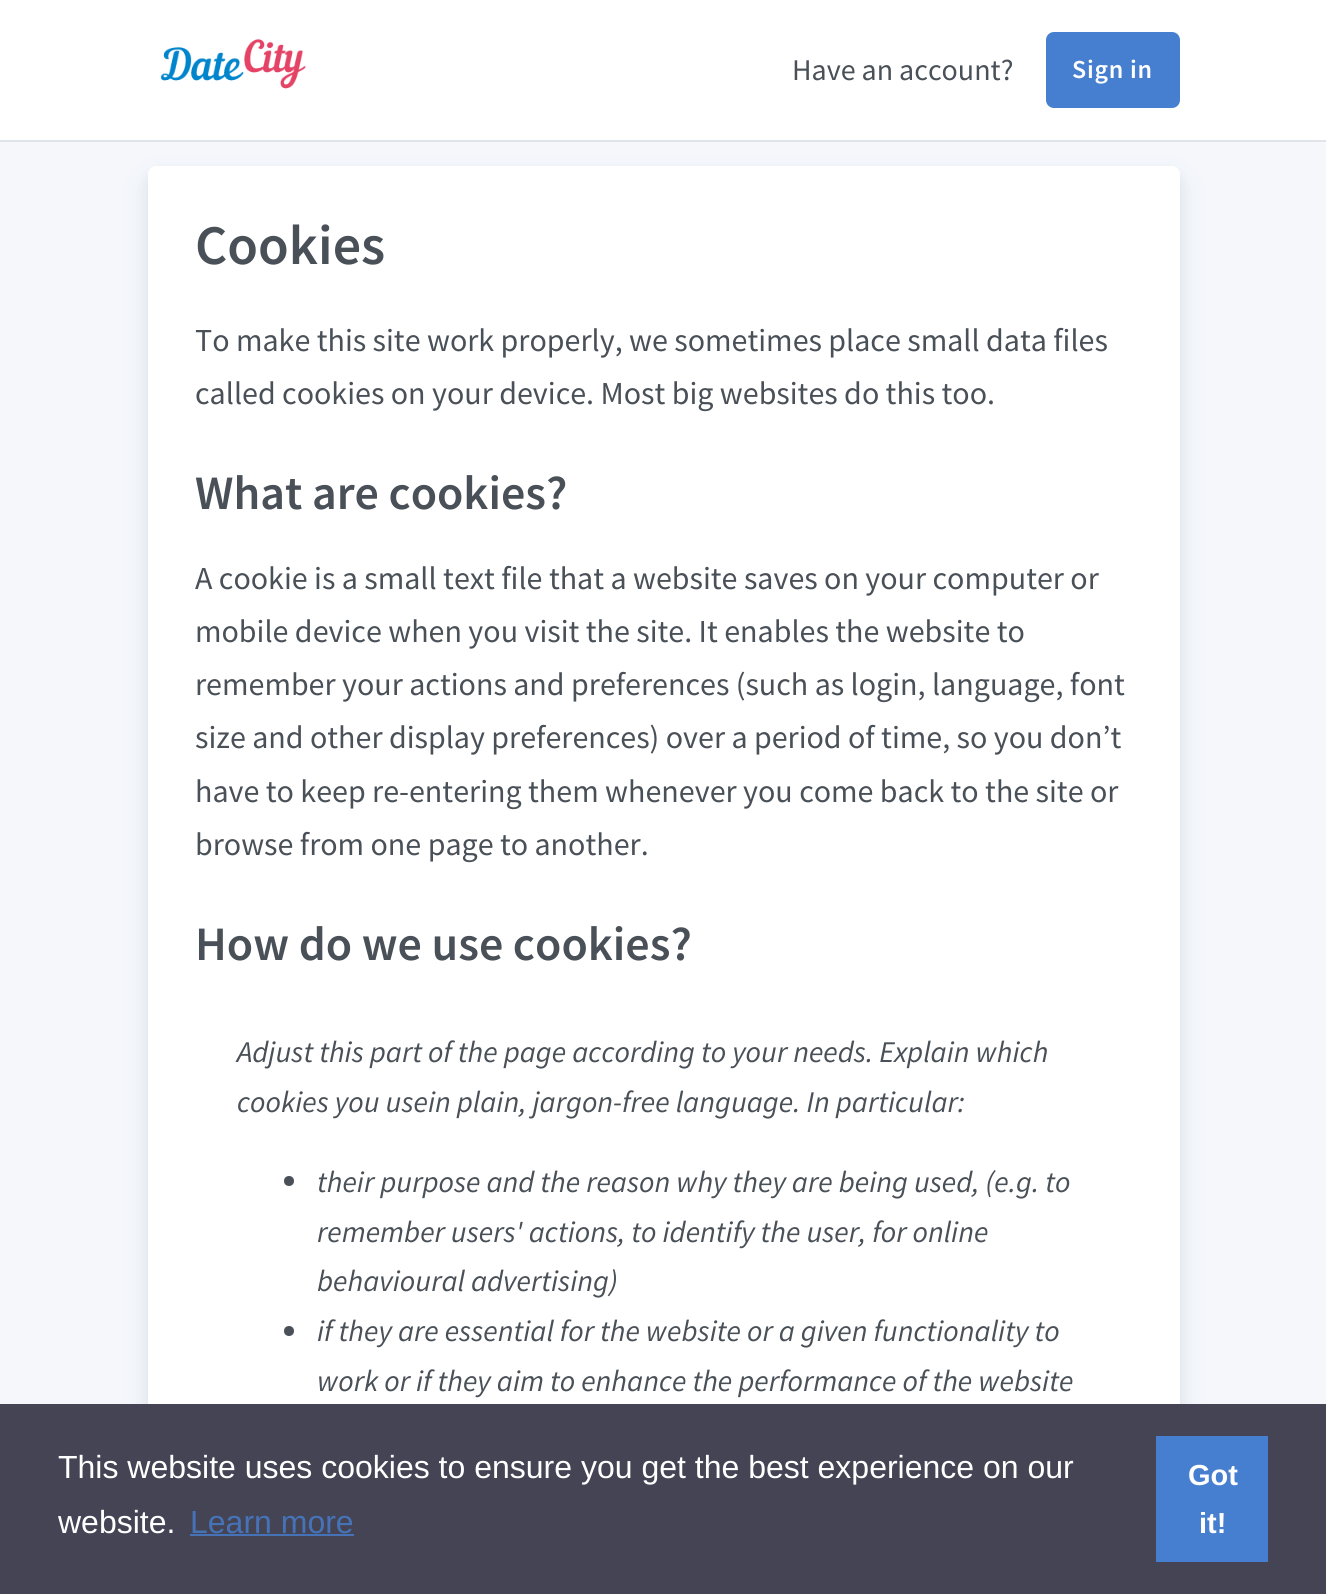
#include <cairo/cairo.h>
#include <math.h>
#include <stddef.h>

typedef struct { double x, y; const char *s; } line_t;
typedef struct { double x, y, w, h; unsigned color; } box_t;
static cairo_t *cr;

static void rgb(unsigned color)
{
	cairo_set_source_rgb(cr, (color >> 16) / 255.0, (color >> 8 & 255) / 255.0, (color & 255) / 255.0);
}

static void tracked(double x, double y, const char *s, double letter, double word)
{
	cairo_move_to(cr, x, y);
	while (*s) {
		char ch[5] = {0};
		int n = 0;
		do ch[n++] = *s++; while ((*s & 0xC0) == 0x80);
		cairo_show_text(cr, ch);
		cairo_rel_move_to(cr, letter + word * (*ch == ' '), 0);
	}
}

static void rrect(double x, double y, double w, double h, double r)
{
	cairo_new_sub_path(cr);
	cairo_arc(cr, x + w - r, y + h - r, r, 0, M_PI / 2);
	cairo_arc(cr, x + r, y + h - r, r, M_PI / 2, M_PI);
	cairo_arc(cr, x + r, y + r, r, M_PI, 1.5 * M_PI);
	cairo_arc(cr, x + w - r, y + r, r, 1.5 * M_PI, 2 * M_PI);
	cairo_close_path(cr);
}

static void soft_shadow(double x, double y, double w, double h, double r, double blur, double alpha)
{
	cairo_push_group_with_content(cr, CAIRO_CONTENT_ALPHA);
	cairo_set_operator(cr, CAIRO_OPERATOR_SOURCE);
	for (int i = 15; i >= -15 && fmin(w, h) + blur * i / 3 > 0; i -= 2) {
		double e = blur * i / 6;
		cairo_set_source_rgba(cr, 0, 0, 0, alpha * erfc((i - 1) / 8.5) / 2);
		rrect(x - e, y - e, w + 2 * e, h + 2 * e, fmax(0, fmin(r + e + blur * .6, fmin(w, h) / 2 + e)));
		cairo_fill(cr);
	}
	cairo_pattern_t *soft = cairo_pop_group(cr);
	cairo_mask(cr, soft);
	cairo_pattern_destroy(soft);
}

static void image(const char *path, double x, double y, double w, double h)
{
	cairo_surface_t *image = cairo_image_surface_create_from_png(path);
	cairo_save(cr);
	cairo_set_source_surface(cr, image, x, y);
	cairo_rectangle(cr, x, y, w, h);
	cairo_fill(cr);
	cairo_restore(cr);
	cairo_surface_destroy(image);
}

int main(void) {
	cairo_surface_t *surface = cairo_image_surface_create(CAIRO_FORMAT_RGB24, 1326, 1594);
	cr = cairo_create(surface);
	cairo_font_options_t *options = cairo_font_options_create();
	cairo_font_options_set_hint_metrics(options, CAIRO_HINT_METRICS_OFF);
	cairo_font_options_set_hint_style(options, CAIRO_HINT_STYLE_NONE);
	cairo_set_font_options(cr, options);
	cairo_set_miter_limit(cr, 4);
	rgb(0xf5f7fb);
	cairo_paint(cr);
	rgb(0xffffff);
	cairo_rectangle(cr, 0, 0, 1326, 140);
	cairo_fill(cr);
	rgb(0xe0e5ec);
	cairo_rectangle(cr, 0, 140, 1326, 2);
	cairo_fill(cr);
	image("img/1.png", 160, 39, 146, 50);
	rgb(0x467fcf);
	rrect(1047, 33, 132, 74, 7);
	cairo_fill_preserve(cr);
	cairo_stroke(cr);
	rgb(0x040608);
	soft_shadow(148, 172, 1032, 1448, 8, 6, 0.05);
	rgb(0x3c7496);
	soft_shadow(148, 180, 1032, 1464, 8, 14, 0.12);
	rgb(0xffffff);
	rrect(148, 166, 1032, 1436, 8);
	cairo_fill(cr);
	rgb(0x495057);
	cairo_arc(cr, 289, 1181, 5, 0, 2 * M_PI);
	cairo_fill(cr);
	cairo_arc(cr, 289, 1331, 5, 0, 2 * M_PI);
	cairo_fill(cr);
	{
		static const box_t items[] = {
			{0, 1404, 1326, 190, 0x444455},
			{190, 1534, 164, 2, 0x4673b7},
			{1156, 1436, 112, 126, 0x467fcf},
		};
		for (size_t i = 0; i < sizeof items / sizeof *items; i++) {
			rgb(items[i].color);
			cairo_rectangle(cr, items[i].x, items[i].y, items[i].w, items[i].h);
			cairo_fill(cr);
		}
	}
	cairo_select_font_face(cr, "Source Sans Pro", CAIRO_FONT_SLANT_NORMAL, CAIRO_FONT_WEIGHT_NORMAL);
	cairo_set_font_size(cr, 30);
	rgb(0x495057);
	cairo_move_to(cr, 792, 80);
	cairo_show_text(cr, "Have an account?");
	cairo_select_font_face(cr, "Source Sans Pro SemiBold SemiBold", CAIRO_FONT_SLANT_NORMAL, CAIRO_FONT_WEIGHT_NORMAL);
	cairo_set_font_size(cr, 26);
	rgb(0xffffff);
	tracked(1072, 78, "Sign in", 0.75, 0);
	cairo_set_font_size(cr, 56);
	rgb(0x495057);
	cairo_move_to(cr, 195, 264);
	cairo_show_text(cr, "Cookies");
	cairo_select_font_face(cr, "Source Sans Pro", CAIRO_FONT_SLANT_NORMAL, CAIRO_FONT_WEIGHT_NORMAL);
	cairo_set_font_size(cr, 32);
	cairo_move_to(cr, 195, 351);
	cairo_show_text(cr, "To make this site work properly, we sometimes place small data files");
	cairo_move_to(cr, 195, 404);
	cairo_show_text(cr, "called cookies on your device. Most big websites do this too.");
	cairo_select_font_face(cr, "Source Sans Pro SemiBold SemiBold", CAIRO_FONT_SLANT_NORMAL, CAIRO_FONT_WEIGHT_NORMAL);
	cairo_set_font_size(cr, 48);
	cairo_move_to(cr, 195, 509);
	cairo_show_text(cr, "What are cookies?");
	cairo_select_font_face(cr, "Source Sans Pro", CAIRO_FONT_SLANT_NORMAL, CAIRO_FONT_WEIGHT_NORMAL);
	cairo_set_font_size(cr, 32);
	{
		static const line_t items[] = {
			{195, 589, "A cookie is a small text file that a website saves on your computer or"},
			{195, 642, "mobile device when you visit the site. It enables the website to"},
			{195, 695, "remember your actions and preferences (such as login, language, font"},
			{195, 748, "size and other display preferences) over a period of time, so you don’t"},
			{195, 802, "have to keep re-entering them whenever you come back to the site or"},
			{195, 855, "browse from one page to another."},
		};
		for (size_t i = 0; i < sizeof items / sizeof *items; i++) {
			cairo_move_to(cr, items[i].x, items[i].y);
			cairo_show_text(cr, items[i].s);
		}
	}
	cairo_select_font_face(cr, "Source Sans Pro SemiBold SemiBold", CAIRO_FONT_SLANT_NORMAL, CAIRO_FONT_WEIGHT_NORMAL);
	cairo_set_font_size(cr, 48);
	cairo_move_to(cr, 195, 960);
	cairo_show_text(cr, "How do we use cookies?");
	cairo_select_font_face(cr, "Source Sans Pro", CAIRO_FONT_SLANT_ITALIC, CAIRO_FONT_WEIGHT_NORMAL);
	cairo_set_font_size(cr, 30);
	{
		static const line_t items[] = {
			{237, 1062, "Adjust this part of the page according to your needs. Explain which"},
			{237, 1112, "cookies you usein plain, jargon-free language. In particular:"},
			{317, 1192, "their purpose and the reason why they are being used, (e.g. to"},
			{317, 1242, "remember users' actions, to identify the user, for online"},
			{317, 1291, "behavioural advertising)"},
			{317, 1341, "if they are essential for the website or a given functionality to"},
			{317, 1391, "work or if they aim to enhance the performance of the website"},
		};
		for (size_t i = 0; i < sizeof items / sizeof *items; i++) {
			cairo_move_to(cr, items[i].x, items[i].y);
			cairo_show_text(cr, items[i].s);
		}
	}
	cairo_select_font_face(cr, "Liberation Sans", CAIRO_FONT_SLANT_NORMAL, CAIRO_FONT_WEIGHT_NORMAL);
	cairo_set_font_size(cr, 32);
	rgb(0xffffff);
	cairo_move_to(cr, 58, 1478);
	cairo_show_text(cr, "This website uses cookies to ensure you get the best experience on our");
	cairo_move_to(cr, 58, 1533);
	cairo_show_text(cr, "website.");
	rgb(0x4673b7);
	cairo_move_to(cr, 190, 1533);
	cairo_show_text(cr, "Learn more");
	cairo_select_font_face(cr, "Liberation Sans", CAIRO_FONT_SLANT_NORMAL, CAIRO_FONT_WEIGHT_BOLD);
	cairo_set_font_size(cr, 29);
	rgb(0xffffff);
	cairo_move_to(cr, 1188, 1485);
	cairo_show_text(cr, "Got");
	cairo_move_to(cr, 1199, 1533);
	cairo_show_text(cr, "it!");
	cairo_surface_write_to_png(surface, "page.png");
	cairo_font_options_destroy(options);
	cairo_destroy(cr);
	cairo_surface_destroy(surface);
	return 0;
}
